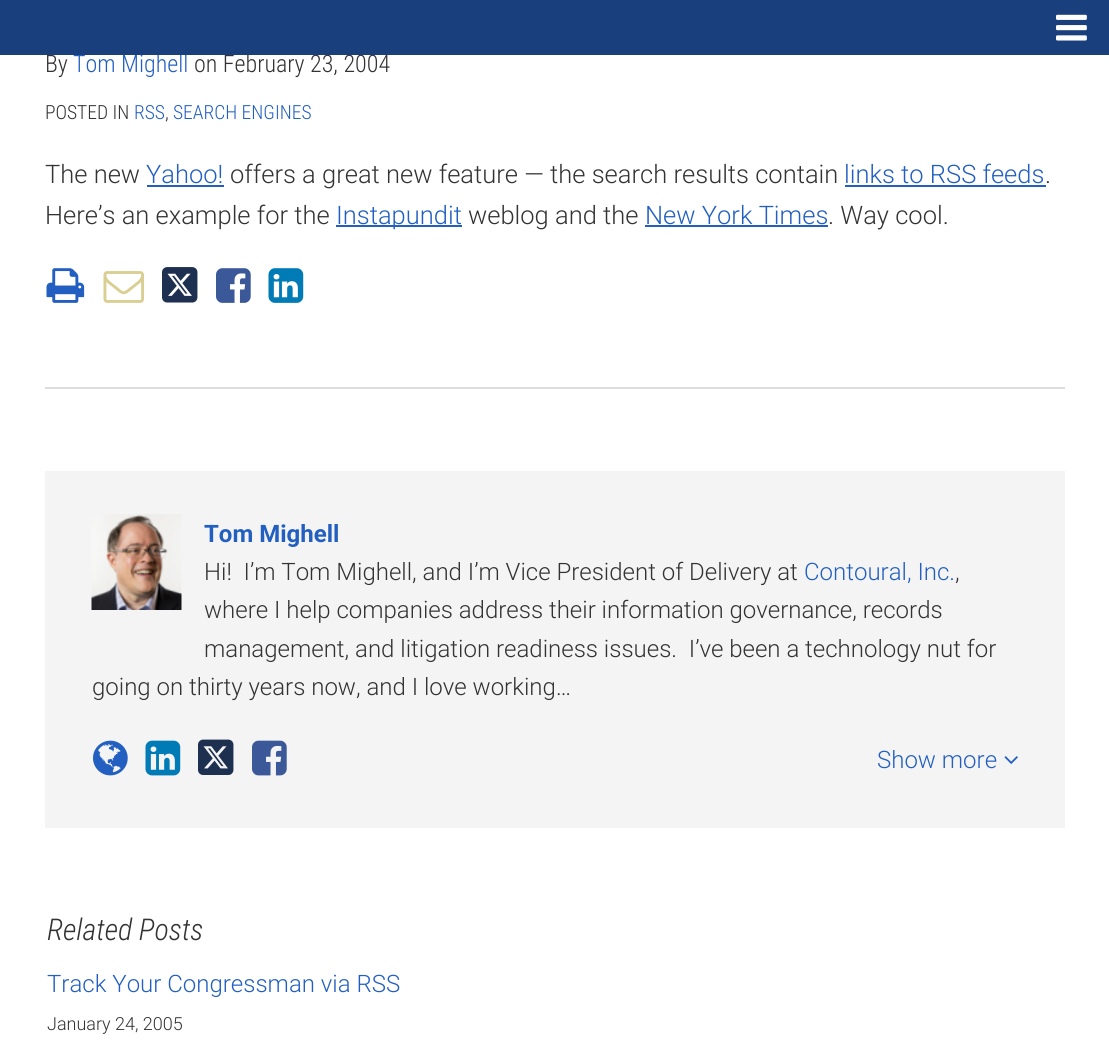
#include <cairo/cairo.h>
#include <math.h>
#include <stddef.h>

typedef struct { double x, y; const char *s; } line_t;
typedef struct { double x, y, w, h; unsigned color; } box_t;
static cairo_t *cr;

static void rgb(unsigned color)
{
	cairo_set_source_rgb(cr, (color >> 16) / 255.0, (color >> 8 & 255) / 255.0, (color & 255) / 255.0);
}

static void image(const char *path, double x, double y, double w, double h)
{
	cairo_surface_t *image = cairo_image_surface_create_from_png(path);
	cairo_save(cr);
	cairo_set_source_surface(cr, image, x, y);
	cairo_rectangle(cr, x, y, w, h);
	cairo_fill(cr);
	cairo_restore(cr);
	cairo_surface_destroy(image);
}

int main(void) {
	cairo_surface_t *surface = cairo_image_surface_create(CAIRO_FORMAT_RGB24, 1109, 1062);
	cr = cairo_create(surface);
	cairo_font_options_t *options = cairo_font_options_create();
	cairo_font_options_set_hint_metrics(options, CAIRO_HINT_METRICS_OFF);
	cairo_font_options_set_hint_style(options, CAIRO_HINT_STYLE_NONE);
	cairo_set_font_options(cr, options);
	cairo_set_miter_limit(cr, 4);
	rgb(0xffffff);
	cairo_paint(cr);
	{
		static const box_t items[] = {
			{147, 185, 77, 2, 0x225fc1},
			{845, 185, 201, 2, 0x225fc1},
			{336, 225, 126, 2, 0x225fc1},
			{645, 225, 183, 2, 0x225fc1},
			{45, 387, 1020, 2, 0xdddddd},
		};
		for (size_t i = 0; i < sizeof items / sizeof *items; i++) {
			rgb(items[i].color);
			cairo_rectangle(cr, items[i].x, items[i].y, items[i].w, items[i].h);
			cairo_fill(cr);
		}
	}
	image("img/2.png", 46, 268, 39, 35);
	image("img/3.png", 103, 271, 41, 32);
	image("img/4.png", 162, 267, 36, 36);
	image("img/5.png", 216, 268, 35, 35);
	image("img/6.png", 268, 268, 36, 35);
	rgb(0xf4f4f4);
	cairo_rectangle(cr, 45, 471, 1020, 357);
	cairo_fill(cr);
	image("img/7.png", 91, 514, 91, 96);
	image("img/8.png", 93, 740, 35, 36);
	image("img/9.png", 145, 740, 36, 36);
	image("img/10.png", 198, 739, 36, 36);
	image("img/11.png", 252, 740, 35, 36);
	image("img/12.png", 1004, 756, 14, 8);
	cairo_select_font_face(cr, "Roboto Condensed Light", CAIRO_FONT_SLANT_NORMAL, CAIRO_FONT_WEIGHT_NORMAL);
	cairo_set_font_size(cr, 24);
	rgb(0x333333);
	cairo_move_to(cr, 45, 72);
	cairo_show_text(cr, "By");
	rgb(0x225fc1);
	cairo_move_to(cr, 73, 72);
	cairo_show_text(cr, "Tom Mighell");
	rgb(0x333333);
	cairo_move_to(cr, 194, 72);
	cairo_show_text(cr, "on February 23, 2004");
	rgb(0x19407c);
	cairo_rectangle(cr, 0, 0, 1109, 55);
	cairo_fill(cr);
	image("img/1.png", 1056, 14, 31, 27);
	cairo_set_font_size(cr, 19.5);
	rgb(0x333333);
	cairo_move_to(cr, 45, 119);
	cairo_show_text(cr, "POSTED IN");
	rgb(0x225fc1);
	cairo_move_to(cr, 134, 119);
	cairo_show_text(cr, "RSS");
	rgb(0x333333);
	cairo_move_to(cr, 165, 119);
	cairo_show_text(cr, ",");
	rgb(0x225fc1);
	cairo_move_to(cr, 173, 119);
	cairo_show_text(cr, "SEARCH ENGINES");
	cairo_select_font_face(cr, "Roboto Light", CAIRO_FONT_SLANT_NORMAL, CAIRO_FONT_WEIGHT_NORMAL);
	cairo_set_font_size(cr, 25.5);
	rgb(0x333333);
	cairo_move_to(cr, 45, 183);
	cairo_show_text(cr, "The new");
	rgb(0x225fc1);
	cairo_move_to(cr, 146, 183);
	cairo_show_text(cr, "Yahoo!");
	rgb(0x333333);
	cairo_move_to(cr, 230, 183);
	cairo_show_text(cr, "offers a great new feature — the search results contain");
	rgb(0x225fc1);
	cairo_move_to(cr, 844, 183);
	cairo_show_text(cr, "links to RSS feeds");
	rgb(0x333333);
	cairo_move_to(cr, 1045, 183);
	cairo_show_text(cr, ".");
	cairo_move_to(cr, 45, 224);
	cairo_show_text(cr, "Here’s an example for the");
	rgb(0x225fc1);
	cairo_move_to(cr, 336, 224);
	cairo_show_text(cr, "Instapundit");
	rgb(0x333333);
	cairo_move_to(cr, 468, 224);
	cairo_show_text(cr, "weblog and the");
	rgb(0x225fc1);
	cairo_move_to(cr, 645, 224);
	cairo_show_text(cr, "New York Times");
	rgb(0x333333);
	cairo_move_to(cr, 828, 224);
	cairo_show_text(cr, ". Way cool.");
	cairo_select_font_face(cr, "Roboto", CAIRO_FONT_SLANT_NORMAL, CAIRO_FONT_WEIGHT_BOLD);
	cairo_set_font_size(cr, 24);
	rgb(0x225fc1);
	cairo_move_to(cr, 204, 542);
	cairo_show_text(cr, "Tom Mighell");
	cairo_select_font_face(cr, "Roboto Light", CAIRO_FONT_SLANT_NORMAL, CAIRO_FONT_WEIGHT_NORMAL);
	rgb(0x333333);
	cairo_move_to(cr, 204, 580);
	cairo_show_text(cr, "Hi!  I’m Tom Mighell, and I’m Vice President of Delivery at");
	rgb(0x225fc1);
	cairo_move_to(cr, 804, 580);
	cairo_show_text(cr, "Contoural, Inc.");
	rgb(0x333333);
	{
		static const line_t items[] = {
			{955, 580, ","},
			{204, 618, "where I help companies address their information governance, records"},
			{204, 657, "management, and litigation readiness issues.  I’ve been a technology nut for"},
			{92, 695, "going on thirty years now, and I love working…"},
		};
		for (size_t i = 0; i < sizeof items / sizeof *items; i++) {
			cairo_move_to(cr, items[i].x, items[i].y);
			cairo_show_text(cr, items[i].s);
		}
	}
	rgb(0x225fc1);
	cairo_move_to(cr, 877, 768);
	cairo_show_text(cr, "Show more");
	cairo_select_font_face(cr, "Roboto Condensed Light", CAIRO_FONT_SLANT_ITALIC, CAIRO_FONT_WEIGHT_NORMAL);
	cairo_set_font_size(cr, 30);
	rgb(0x333333);
	cairo_move_to(cr, 47, 940);
	cairo_show_text(cr, "Related Posts");
	cairo_select_font_face(cr, "Roboto Light", CAIRO_FONT_SLANT_NORMAL, CAIRO_FONT_WEIGHT_NORMAL);
	cairo_set_font_size(cr, 24);
	rgb(0x225fc1);
	cairo_move_to(cr, 47, 992);
	cairo_show_text(cr, "Track Your Congressman via RSS");
	cairo_set_font_size(cr, 18);
	rgb(0x333333);
	cairo_move_to(cr, 47, 1030);
	cairo_show_text(cr, "January 24, 2005");
	cairo_surface_write_to_png(surface, "page.png");
	cairo_font_options_destroy(options);
	cairo_destroy(cr);
	cairo_surface_destroy(surface);
	return 0;
}
